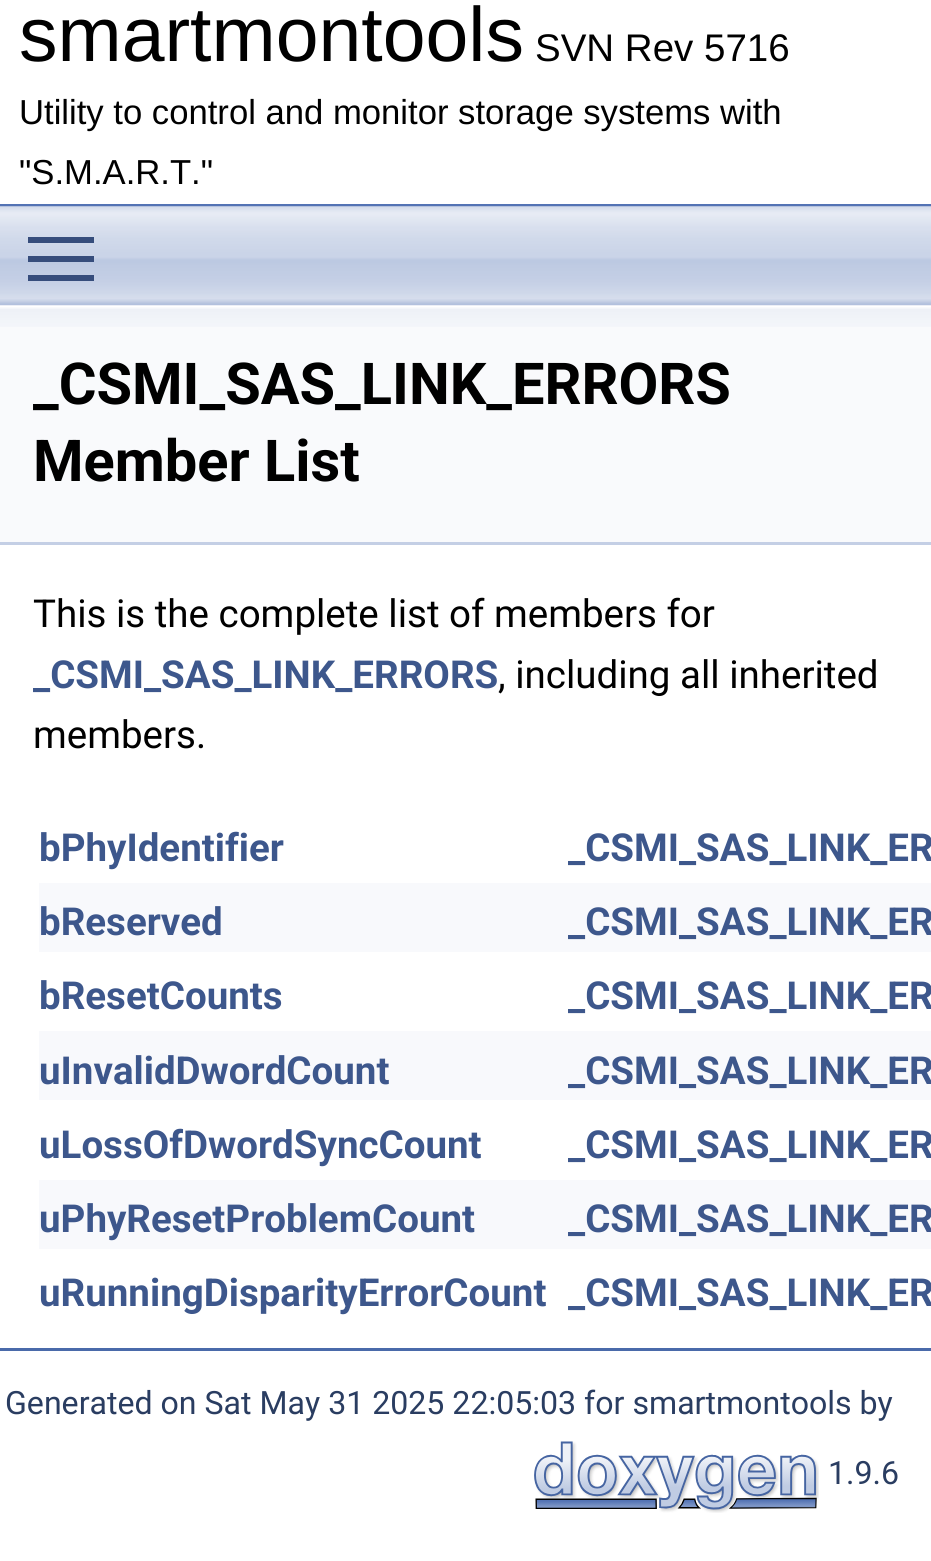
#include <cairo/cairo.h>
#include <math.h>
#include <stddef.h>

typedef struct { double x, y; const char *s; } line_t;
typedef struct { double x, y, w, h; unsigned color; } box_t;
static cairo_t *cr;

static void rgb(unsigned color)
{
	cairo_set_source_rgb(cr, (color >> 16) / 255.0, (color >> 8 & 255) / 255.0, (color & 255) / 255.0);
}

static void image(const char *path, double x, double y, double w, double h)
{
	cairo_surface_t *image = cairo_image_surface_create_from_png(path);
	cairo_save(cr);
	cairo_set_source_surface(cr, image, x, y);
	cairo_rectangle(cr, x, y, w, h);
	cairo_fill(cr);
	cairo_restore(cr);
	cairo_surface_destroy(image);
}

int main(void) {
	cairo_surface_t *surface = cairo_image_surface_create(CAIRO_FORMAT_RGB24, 931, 1561);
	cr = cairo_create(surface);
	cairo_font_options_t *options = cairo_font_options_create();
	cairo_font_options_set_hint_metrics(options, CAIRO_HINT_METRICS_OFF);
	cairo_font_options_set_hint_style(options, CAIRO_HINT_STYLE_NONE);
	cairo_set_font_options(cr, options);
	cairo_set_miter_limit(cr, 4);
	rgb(0xffffff);
	cairo_paint(cr);
	rgb(0x5373b4);
	cairo_rectangle(cr, 0, 204, 931, 3);
	cairo_fill(cr);
	rgb(0xf9fafc);
	cairo_rectangle(cr, 0, 305, 931, 237);
	cairo_fill(cr);
	image("img/2.png", 0, 305, 931, 22);
	image("img/1.png", 0, 206, 931, 100);
	{
		static const box_t items[] = {
			{28, 256, 66, 6, 0x364d7c},
			{28, 237, 66, 6, 0x364d7c},
			{28, 275, 66, 6, 0x364d7c},
			{0, 542, 931, 3, 0xc4cfe5},
			{39, 883, 892, 69, 0xf8f9fc},
			{39, 1031, 892, 69, 0xf8f9fc},
			{39, 1180, 892, 69, 0xf8f9fc},
			{0, 1348, 931, 3, 0x4a6aaa},
		};
		for (size_t i = 0; i < sizeof items / sizeof *items; i++) {
			rgb(items[i].color);
			cairo_rectangle(cr, items[i].x, items[i].y, items[i].w, items[i].h);
			cairo_fill(cr);
		}
	}
	image("img/3.png", 534, 1441, 285, 72);
	cairo_select_font_face(cr, "Liberation Sans", CAIRO_FONT_SLANT_NORMAL, CAIRO_FONT_WEIGHT_NORMAL);
	cairo_set_font_size(cr, 77);
	rgb(0x000000);
	cairo_move_to(cr, 19, 61);
	cairo_show_text(cr, "smartmontools");
	cairo_set_font_size(cr, 38.5);
	cairo_move_to(cr, 535, 61);
	cairo_show_text(cr, "SVN Rev 5716");
	cairo_set_font_size(cr, 34.65);
	cairo_move_to(cr, 19, 124);
	cairo_show_text(cr, "Utility to control and monitor storage systems with");
	cairo_move_to(cr, 19, 184);
	cairo_show_text(cr, "\"S.M.A.R.T.\"");
	cairo_select_font_face(cr, "Roboto", CAIRO_FONT_SLANT_NORMAL, CAIRO_FONT_WEIGHT_BOLD);
	cairo_set_font_size(cr, 57.75);
	cairo_move_to(cr, 33, 404);
	cairo_show_text(cr, "_CSMI_SAS_LINK_ERRORS");
	cairo_move_to(cr, 33, 481);
	cairo_show_text(cr, "Member List");
	cairo_select_font_face(cr, "Roboto", CAIRO_FONT_SLANT_NORMAL, CAIRO_FONT_WEIGHT_NORMAL);
	cairo_set_font_size(cr, 38.5);
	cairo_move_to(cr, 33, 627);
	cairo_show_text(cr, "This is the complete list of members for");
	cairo_select_font_face(cr, "Roboto", CAIRO_FONT_SLANT_NORMAL, CAIRO_FONT_WEIGHT_BOLD);
	rgb(0x3d578c);
	cairo_move_to(cr, 33, 688);
	cairo_show_text(cr, "_CSMI_SAS_LINK_ERRORS");
	cairo_select_font_face(cr, "Roboto", CAIRO_FONT_SLANT_NORMAL, CAIRO_FONT_WEIGHT_NORMAL);
	rgb(0x000000);
	cairo_move_to(cr, 498, 688);
	cairo_show_text(cr, ", including all inherited");
	cairo_move_to(cr, 33, 748);
	cairo_show_text(cr, "members.");
	cairo_select_font_face(cr, "Roboto", CAIRO_FONT_SLANT_NORMAL, CAIRO_FONT_WEIGHT_BOLD);
	rgb(0x3d578c);
	{
		static const line_t items[] = {
			{39, 861, "bPhyIdentifier"},
			{568, 861, "_CSMI_SAS_LINK_ER"},
			{39, 935, "bReserved"},
			{568, 935, "_CSMI_SAS_LINK_ER"},
			{39, 1009, "bResetCounts"},
			{568, 1009, "_CSMI_SAS_LINK_ER"},
			{39, 1084, "uInvalidDwordCount"},
			{568, 1084, "_CSMI_SAS_LINK_ER"},
			{39, 1158, "uLossOfDwordSyncCount"},
			{568, 1158, "_CSMI_SAS_LINK_ER"},
			{39, 1232, "uPhyResetProblemCount"},
			{568, 1232, "_CSMI_SAS_LINK_ER"},
			{39, 1306, "uRunningDisparityErrorCount"},
			{568, 1306, "_CSMI_SAS_LINK_ER"},
		};
		for (size_t i = 0; i < sizeof items / sizeof *items; i++) {
			cairo_move_to(cr, items[i].x, items[i].y);
			cairo_show_text(cr, items[i].s);
		}
	}
	cairo_select_font_face(cr, "Roboto", CAIRO_FONT_SLANT_NORMAL, CAIRO_FONT_WEIGHT_NORMAL);
	cairo_set_font_size(cr, 32.1);
	rgb(0x2a3d61);
	cairo_move_to(cr, 5, 1414);
	cairo_show_text(cr, "Generated on Sat May 31 2025 22:05:03 for smartmontools by");
	cairo_move_to(cr, 828, 1484);
	cairo_show_text(cr, "1.9.6");
	cairo_surface_write_to_png(surface, "page.png");
	cairo_font_options_destroy(options);
	cairo_destroy(cr);
	cairo_surface_destroy(surface);
	return 0;
}
